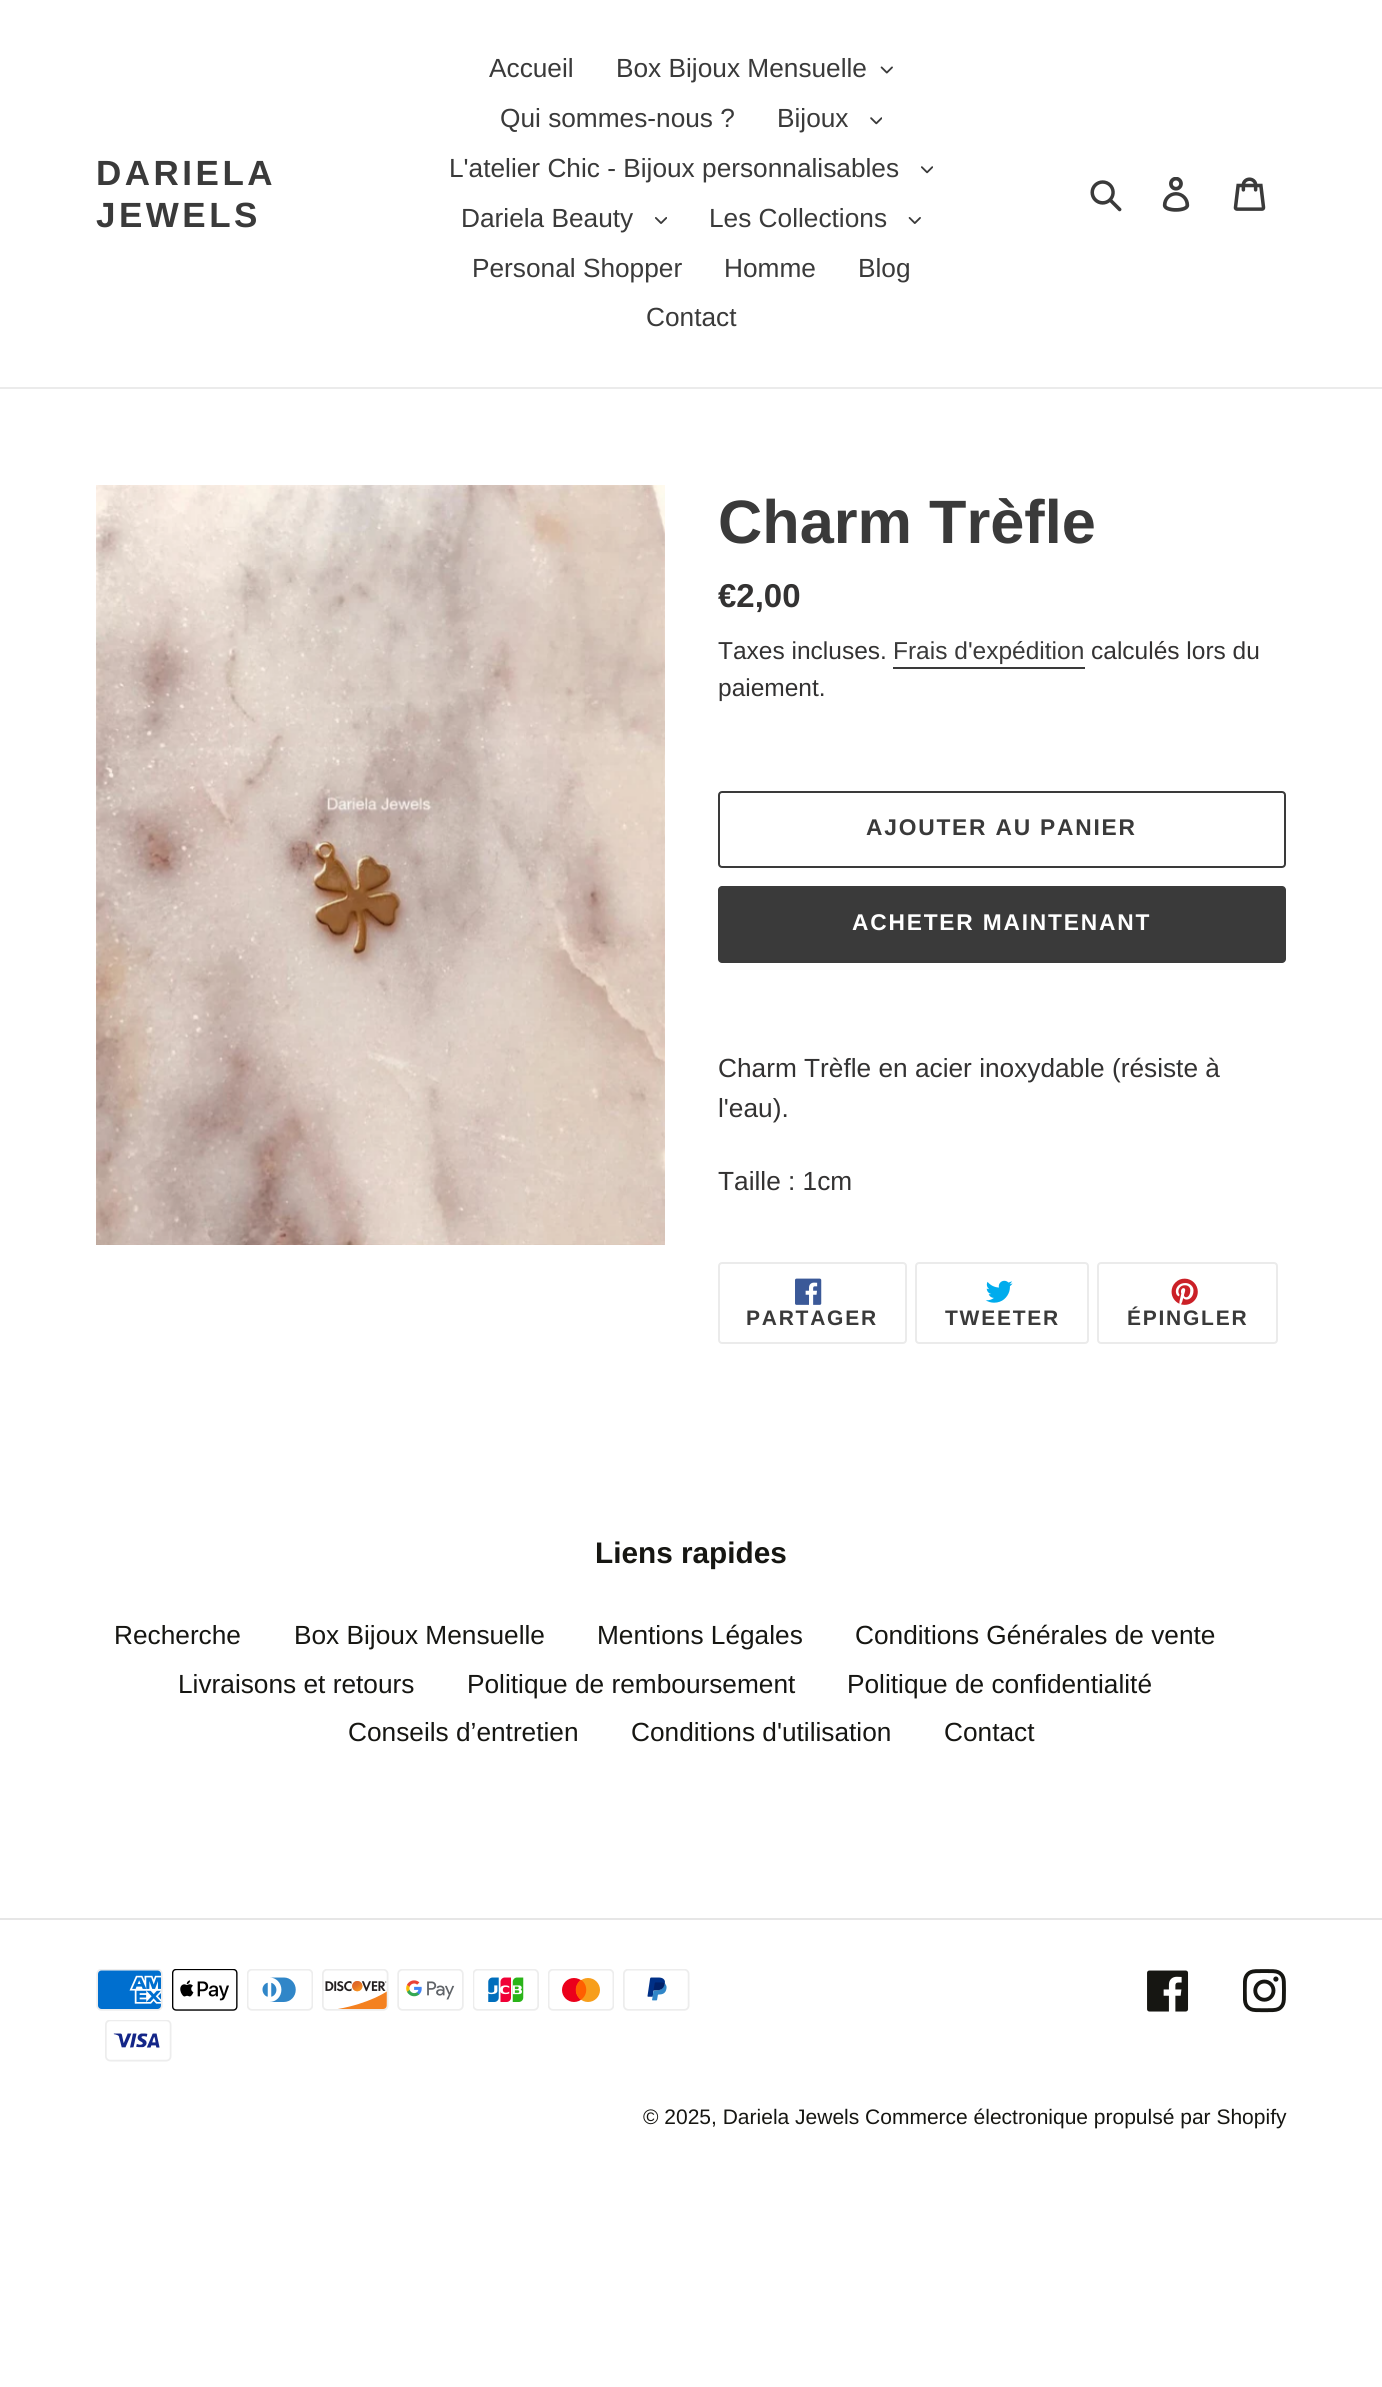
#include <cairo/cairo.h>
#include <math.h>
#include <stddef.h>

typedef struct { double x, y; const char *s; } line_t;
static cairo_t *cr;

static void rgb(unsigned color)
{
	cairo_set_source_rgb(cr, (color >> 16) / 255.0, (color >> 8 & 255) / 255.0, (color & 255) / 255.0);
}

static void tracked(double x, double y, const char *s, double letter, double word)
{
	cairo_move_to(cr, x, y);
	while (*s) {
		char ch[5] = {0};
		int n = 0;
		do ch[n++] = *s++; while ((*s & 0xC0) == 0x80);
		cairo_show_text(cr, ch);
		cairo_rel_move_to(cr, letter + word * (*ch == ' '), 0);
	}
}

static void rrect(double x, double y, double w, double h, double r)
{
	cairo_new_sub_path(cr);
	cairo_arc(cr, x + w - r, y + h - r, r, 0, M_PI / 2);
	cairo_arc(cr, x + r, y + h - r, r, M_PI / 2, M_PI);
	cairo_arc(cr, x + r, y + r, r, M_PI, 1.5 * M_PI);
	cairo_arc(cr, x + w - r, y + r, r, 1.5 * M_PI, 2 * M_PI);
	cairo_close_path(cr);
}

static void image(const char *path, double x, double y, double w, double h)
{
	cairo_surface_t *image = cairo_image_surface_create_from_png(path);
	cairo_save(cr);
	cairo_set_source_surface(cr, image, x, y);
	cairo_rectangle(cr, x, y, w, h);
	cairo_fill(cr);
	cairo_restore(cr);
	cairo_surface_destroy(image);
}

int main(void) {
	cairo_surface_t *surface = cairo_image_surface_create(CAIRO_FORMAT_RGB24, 1382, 2387);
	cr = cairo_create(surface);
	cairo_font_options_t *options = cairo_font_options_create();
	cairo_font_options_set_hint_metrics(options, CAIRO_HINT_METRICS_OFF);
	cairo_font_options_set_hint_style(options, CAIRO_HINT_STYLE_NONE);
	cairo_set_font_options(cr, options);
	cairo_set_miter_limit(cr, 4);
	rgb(0xffffff);
	cairo_paint(cr);
	rgb(0xebebeb);
	cairo_rectangle(cr, 0, 387, 1382, 2);
	cairo_fill(cr);
	image("img/1.png", 880, 66, 13, 8);
	image("img/2.png", 870, 117, 12, 8);
	image("img/3.png", 921, 166, 12, 8);
	image("img/4.png", 655, 217, 12, 7);
	image("img/5.png", 908, 217, 13, 7);
	image("img/6.png", 1090, 180, 32, 32);
	image("img/7.png", 1162, 177, 28, 35);
	image("img/8.png", 1233, 177, 33, 34);
	image("img/9.png", 96, 485, 569, 760);
	rgb(0x3a3a3a);
	cairo_rectangle(cr, 893, 667, 192, 2);
	cairo_fill(cr);
	rrect(719, 792, 566, 75, 3);
	cairo_stroke(cr);
	rrect(718, 886, 568, 77, 4);
	cairo_fill(cr);
	rrect(719, 1263, 187, 80, 3);
	rgb(0xebebeb);
	cairo_stroke(cr);
	image("img/10.png", 795, 1278, 27, 27);
	rrect(916, 1263, 172, 80, 3);
	cairo_stroke(cr);
	image("img/11.png", 985, 1280, 28, 23);
	rrect(1098, 1263, 179, 80, 3);
	cairo_stroke(cr);
	image("img/12.png", 1171, 1278, 27, 27);
	rgb(0xe6e6e6);
	cairo_rectangle(cr, 0, 1918, 1382, 2);
	cairo_fill(cr);
	image("img/13.png", 96, 1969, 67, 42);
	image("img/14.png", 172, 1969, 66, 42);
	image("img/15.png", 247, 1969, 66, 42);
	image("img/16.png", 322, 1969, 67, 42);
	image("img/17.png", 397, 1969, 67, 42);
	image("img/18.png", 473, 1969, 66, 42);
	image("img/19.png", 548, 1969, 66, 42);
	image("img/20.png", 623, 1969, 67, 42);
	image("img/21.png", 105, 2020, 67, 42);
	image("img/22.png", 1147, 1970, 42, 42);
	image("img/23.png", 1243, 1969, 43, 44);
	cairo_select_font_face(cr, "Liberation Sans", CAIRO_FONT_SLANT_NORMAL, CAIRO_FONT_WEIGHT_BOLD);
	cairo_set_font_size(cr, 35);
	rgb(0x3a3a3a);
	tracked(96, 185, "DARIELA", 3.5, 0);
	tracked(96, 227, "JEWELS", 3.5, 0);
	cairo_select_font_face(cr, "Liberation Sans", CAIRO_FONT_SLANT_NORMAL, CAIRO_FONT_WEIGHT_NORMAL);
	cairo_set_font_size(cr, 26.25);
	{
		static const line_t items[] = {
			{489, 77, "Accueil"},
			{616, 77, "Box Bijoux Mensuelle"},
			{500, 127, "Qui sommes-nous ?"},
			{777, 127, "Bijoux"},
			{449, 177, "L'atelier Chic - Bijoux personnalisables"},
			{461, 227, "Dariela Beauty"},
			{709, 227, "Les Collections"},
			{472, 277, "Personal Shopper"},
			{724, 277, "Homme"},
			{858, 277, "Blog"},
			{646, 326, "Contact"},
		};
		for (size_t i = 0; i < sizeof items / sizeof *items; i++) {
			cairo_move_to(cr, items[i].x, items[i].y);
			cairo_show_text(cr, items[i].s);
		}
	}
	cairo_select_font_face(cr, "Liberation Sans", CAIRO_FONT_SLANT_NORMAL, CAIRO_FONT_WEIGHT_BOLD);
	cairo_set_font_size(cr, 61.25);
	cairo_move_to(cr, 718, 543);
	cairo_show_text(cr, "Charm Trèfle");
	cairo_set_font_size(cr, 33);
	rgb(0x333232);
	cairo_move_to(cr, 718, 607);
	cairo_show_text(cr, "€2,00");
	cairo_select_font_face(cr, "Liberation Sans", CAIRO_FONT_SLANT_NORMAL, CAIRO_FONT_WEIGHT_NORMAL);
	cairo_set_font_size(cr, 24.5);
	cairo_move_to(cr, 718, 659);
	cairo_show_text(cr, "Taxes incluses.");
	rgb(0x3a3a3a);
	cairo_move_to(cr, 893, 659);
	cairo_show_text(cr, "Frais d'expédition");
	rgb(0x333232);
	cairo_move_to(cr, 1091, 659);
	cairo_show_text(cr, "calculés lors du");
	cairo_move_to(cr, 718, 696);
	cairo_show_text(cr, "paiement.");
	cairo_select_font_face(cr, "Liberation Sans", CAIRO_FONT_SLANT_NORMAL, CAIRO_FONT_WEIGHT_BOLD);
	cairo_set_font_size(cr, 22.75);
	rgb(0x3a3a3a);
	tracked(866, 835, "AJOUTER AU PANIER", 1.8, 0);
	rgb(0xffffff);
	tracked(852, 930, "ACHETER MAINTENANT", 1.8, 0);
	cairo_select_font_face(cr, "Liberation Sans", CAIRO_FONT_SLANT_NORMAL, CAIRO_FONT_WEIGHT_NORMAL);
	cairo_set_font_size(cr, 26.25);
	rgb(0x333232);
	{
		static const line_t items[] = {
			{718, 1077, "Charm Trèfle en acier inoxydable (résiste à"},
			{718, 1117, "l'eau)."},
			{718, 1190, "Taille : 1cm"},
		};
		for (size_t i = 0; i < sizeof items / sizeof *items; i++) {
			cairo_move_to(cr, items[i].x, items[i].y);
			cairo_show_text(cr, items[i].s);
		}
	}
	cairo_select_font_face(cr, "Liberation Sans", CAIRO_FONT_SLANT_NORMAL, CAIRO_FONT_WEIGHT_BOLD);
	cairo_set_font_size(cr, 21);
	rgb(0x3a3a3a);
	{
		static const line_t items[] = {
			{746, 1325, "PARTAGER"},
			{945, 1325, "TWEETER"},
			{1127, 1325, "ÉPINGLER"},
		};
		for (size_t i = 0; i < sizeof items / sizeof *items; i++) {
			tracked(items[i].x, items[i].y, items[i].s, 1.75, 0);
		}
	}
	cairo_set_font_size(cr, 29.75);
	rgb(0x161612);
	cairo_move_to(cr, 595, 1563);
	cairo_show_text(cr, "Liens rapides");
	cairo_select_font_face(cr, "Liberation Sans", CAIRO_FONT_SLANT_NORMAL, CAIRO_FONT_WEIGHT_NORMAL);
	cairo_set_font_size(cr, 26.25);
	{
		static const line_t items[] = {
			{114, 1644, "Recherche"},
			{294, 1644, "Box Bijoux Mensuelle"},
			{597, 1644, "Mentions Légales"},
			{855, 1644, "Conditions Générales de vente"},
			{178, 1693, "Livraisons et retours"},
			{467, 1693, "Politique de remboursement"},
			{847, 1693, "Politique de confidentialité"},
			{348, 1741, "Conseils d’entretien"},
			{631, 1741, "Conditions d'utilisation"},
			{944, 1741, "Contact"},
		};
		for (size_t i = 0; i < sizeof items / sizeof *items; i++) {
			cairo_move_to(cr, items[i].x, items[i].y);
			cairo_show_text(cr, items[i].s);
		}
	}
	cairo_set_font_size(cr, 21);
	cairo_move_to(cr, 643, 2124);
	cairo_show_text(cr, "© 2025, Dariela Jewels Commerce électronique propulsé par Shopify");
	cairo_surface_write_to_png(surface, "page.png");
	cairo_font_options_destroy(options);
	cairo_destroy(cr);
	cairo_surface_destroy(surface);
	return 0;
}
